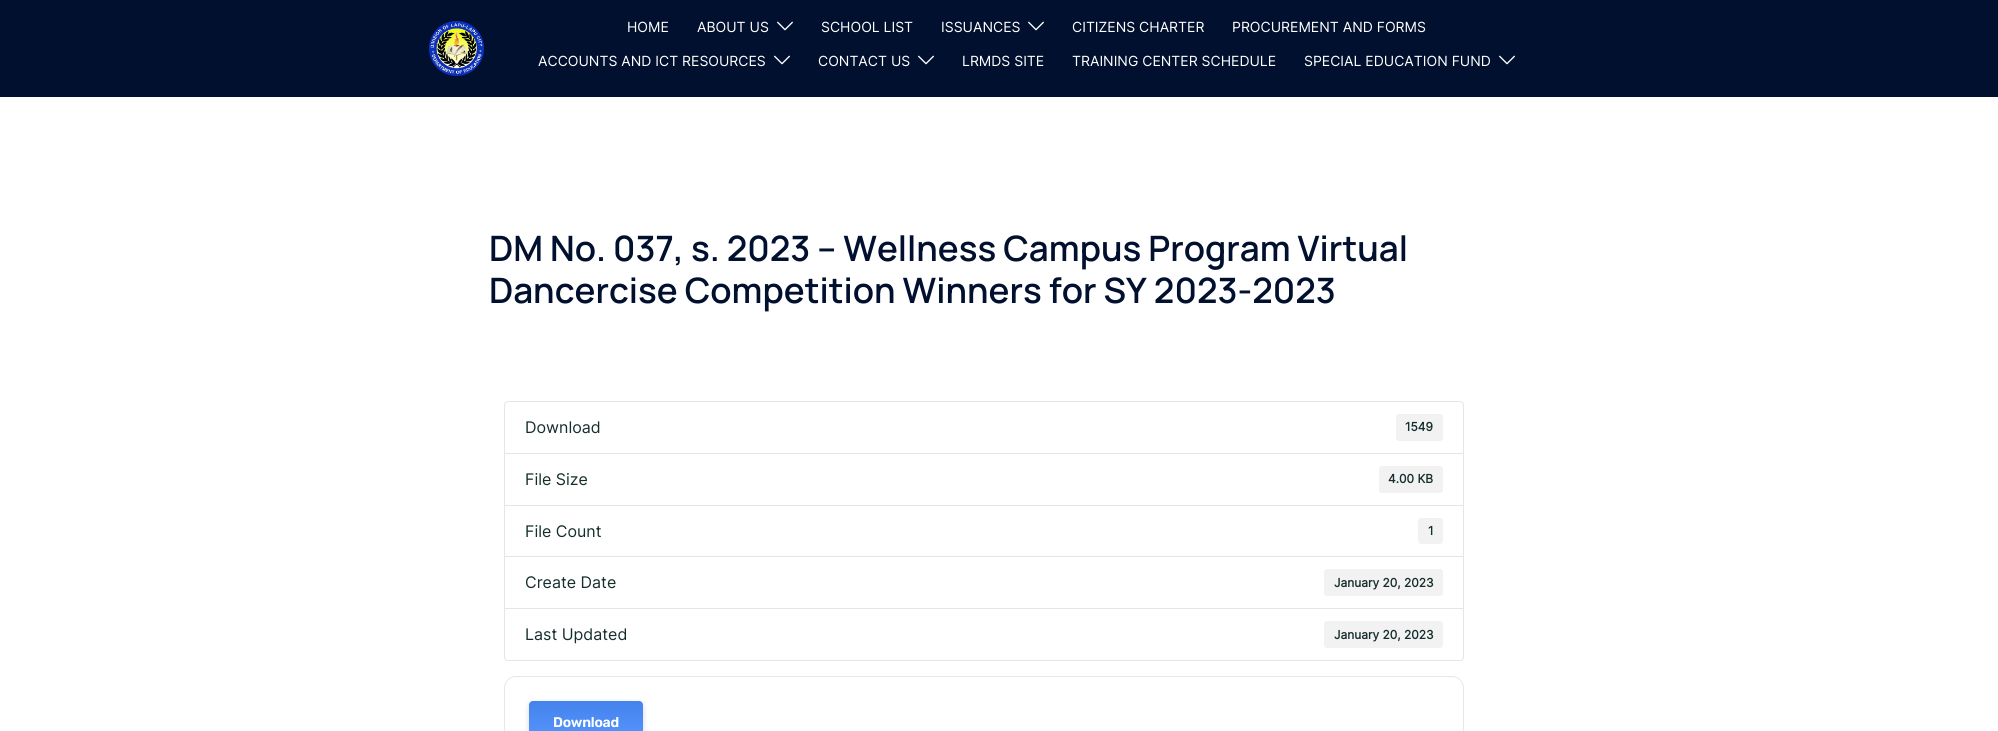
#include <cairo/cairo.h>
#include <math.h>
#include <stddef.h>

typedef struct { double x, y; const char *s; } line_t;
static cairo_t *cr;

static void rgb(unsigned color)
{
	cairo_set_source_rgb(cr, (color >> 16) / 255.0, (color >> 8 & 255) / 255.0, (color & 255) / 255.0);
}

static void tracked(double x, double y, const char *s, double letter, double word)
{
	cairo_move_to(cr, x, y);
	while (*s) {
		char ch[5] = {0};
		int n = 0;
		do ch[n++] = *s++; while ((*s & 0xC0) == 0x80);
		cairo_show_text(cr, ch);
		cairo_rel_move_to(cr, letter + word * (*ch == ' '), 0);
	}
}

static void rrect(double x, double y, double w, double h, double r)
{
	cairo_new_sub_path(cr);
	cairo_arc(cr, x + w - r, y + h - r, r, 0, M_PI / 2);
	cairo_arc(cr, x + r, y + h - r, r, M_PI / 2, M_PI);
	cairo_arc(cr, x + r, y + r, r, M_PI, 1.5 * M_PI);
	cairo_arc(cr, x + w - r, y + r, r, 1.5 * M_PI, 2 * M_PI);
	cairo_close_path(cr);
}

static void soft_shadow(double x, double y, double w, double h, double r, double blur, double alpha)
{
	cairo_push_group_with_content(cr, CAIRO_CONTENT_ALPHA);
	cairo_set_operator(cr, CAIRO_OPERATOR_SOURCE);
	for (int i = 15; i >= -15 && fmin(w, h) + blur * i / 3 > 0; i -= 2) {
		double e = blur * i / 6;
		cairo_set_source_rgba(cr, 0, 0, 0, alpha * erfc((i - 1) / 8.5) / 2);
		rrect(x - e, y - e, w + 2 * e, h + 2 * e, fmax(0, fmin(r + e + blur * .6, fmin(w, h) / 2 + e)));
		cairo_fill(cr);
	}
	cairo_pattern_t *soft = cairo_pop_group(cr);
	cairo_mask(cr, soft);
	cairo_pattern_destroy(soft);
}

static void image(const char *path, double x, double y, double w, double h)
{
	cairo_surface_t *image = cairo_image_surface_create_from_png(path);
	cairo_save(cr);
	cairo_set_source_surface(cr, image, x, y);
	cairo_rectangle(cr, x, y, w, h);
	cairo_fill(cr);
	cairo_restore(cr);
	cairo_surface_destroy(image);
}

int main(void) {
	cairo_surface_t *surface = cairo_image_surface_create(CAIRO_FORMAT_RGB24, 1998, 731);
	cr = cairo_create(surface);
	cairo_font_options_t *options = cairo_font_options_create();
	cairo_font_options_set_hint_metrics(options, CAIRO_HINT_METRICS_OFF);
	cairo_font_options_set_hint_style(options, CAIRO_HINT_STYLE_NONE);
	cairo_set_font_options(cr, options);
	cairo_set_miter_limit(cr, 4);
	cairo_pattern_t *gradient;
	rgb(0xffffff);
	cairo_paint(cr);
	rgb(0x00102e);
	cairo_rectangle(cr, 0, 0, 1998, 97);
	cairo_fill(cr);
	image("img/1.png", 429, 21, 55, 55);
	image("img/2.png", 777, 21, 16, 10);
	image("img/2.png", 1028, 21, 16, 10);
	image("img/2.png", 774, 55, 16, 10);
	image("img/2.png", 918, 55, 16, 10);
	image("img/2.png", 1499, 55, 16, 10);
	cairo_new_path(cr);
	cairo_move_to(cr, 508, 401.5);
	cairo_line_to(cr, 1460, 401.5);
	cairo_curve_to(cr, 1462, 401.5, 1463.5, 403, 1463.5, 405);
	cairo_line_to(cr, 1463.5, 453.5);
	cairo_line_to(cr, 504.5, 453.5);
	cairo_line_to(cr, 504.5, 405);
	cairo_curve_to(cr, 504.5, 403, 506, 401.5, 508, 401.5);
	cairo_close_path(cr);
	rgb(0xe5e5e5);
	cairo_set_line_width(cr, 1);
	cairo_stroke(cr);
	rgb(0xf2f2f2);
	rrect(1396, 414, 47, 27, 3);
	cairo_fill(cr);
	cairo_rectangle(cr, 504.5, 453.5, 959, 52);
	rgb(0xe5e5e5);
	cairo_stroke(cr);
	rgb(0xf2f2f2);
	rrect(1379, 466, 64, 27, 3);
	cairo_fill(cr);
	cairo_rectangle(cr, 504.5, 505.5, 959, 51);
	rgb(0xe5e5e5);
	cairo_stroke(cr);
	rgb(0xf2f2f2);
	rrect(1418, 518, 25, 26, 3);
	cairo_fill(cr);
	cairo_rectangle(cr, 504.5, 556.5, 959, 52);
	rgb(0xe5e5e5);
	cairo_stroke(cr);
	rgb(0xf2f2f2);
	rrect(1324, 569, 119, 27, 3);
	cairo_fill(cr);
	rgb(0xffffff);
	cairo_new_path(cr);
	cairo_move_to(cr, 504.5, 608.5);
	cairo_line_to(cr, 1463.5, 608.5);
	cairo_line_to(cr, 1463.5, 657);
	cairo_curve_to(cr, 1463.5, 659, 1462, 660.5, 1460, 660.5);
	cairo_line_to(cr, 508, 660.5);
	cairo_curve_to(cr, 506, 660.5, 504.5, 659, 504.5, 657);
	cairo_close_path(cr);
	cairo_fill_preserve(cr);
	rgb(0xe5e5e5);
	cairo_stroke(cr);
	rgb(0xf2f2f2);
	rrect(1324, 621, 119, 27, 3);
	cairo_fill(cr);
	rrect(504.5, 676.5, 959, 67, 11.5);
	rgb(0xe2e8f0);
	cairo_stroke(cr);
	rgb(0x000000);
	soft_shadow(529, 703, 114, 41, 4, 3, 0.15);
	rgb(0x4a8eff);
	rrect(529, 701, 114, 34, 4);
	cairo_fill(cr);
	gradient = cairo_pattern_create_linear(586, 701, 586, 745);
	cairo_pattern_add_color_stop_rgba(gradient, 0, 0, 0, 0, 0.08);
	cairo_pattern_add_color_stop_rgba(gradient, 1, 1, 1, 1, 0.08);
	cairo_set_source(cr, gradient);
	cairo_pattern_destroy(gradient);
	rrect(529, 701, 114, 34, 4);
	cairo_fill(cr);
	cairo_select_font_face(cr, "Inter", CAIRO_FONT_SLANT_NORMAL, CAIRO_FONT_WEIGHT_NORMAL);
	cairo_set_font_size(cr, 14);
	rgb(0xffffff);
	{
		static const line_t items[] = {
			{627, 32, "HOME"},
			{697, 32, "ABOUT US"},
			{821, 32, "SCHOOL LIST"},
			{941, 32, "ISSUANCES"},
			{1072, 32, "CITIZENS CHARTER"},
			{1232, 32, "PROCUREMENT AND FORMS"},
			{538, 66, "ACCOUNTS AND ICT RESOURCES"},
			{818, 66, "CONTACT US"},
			{962, 66, "LRMDS SITE"},
			{1072, 66, "TRAINING CENTER SCHEDULE"},
			{1304, 66, "SPECIAL EDUCATION FUND"},
		};
		for (size_t i = 0; i < sizeof items / sizeof *items; i++) {
			cairo_move_to(cr, items[i].x, items[i].y);
			cairo_show_text(cr, items[i].s);
		}
	}
	cairo_select_font_face(cr, "Manrope ExtraLight", CAIRO_FONT_SLANT_NORMAL, CAIRO_FONT_WEIGHT_NORMAL);
	cairo_set_font_size(cr, 35);
	rgb(0x00102e);
	cairo_move_to(cr, 489, 261);
	cairo_show_text(cr, "DM No. 037, s. 2023 – Wellness Campus Program Virtual");
	cairo_move_to(cr, 489, 303);
	cairo_show_text(cr, "Dancercise Competition Winners for SY 2023-2023");
	cairo_select_font_face(cr, "Inter", CAIRO_FONT_SLANT_NORMAL, CAIRO_FONT_WEIGHT_NORMAL);
	cairo_set_font_size(cr, 16);
	rgb(0x142e2c);
	cairo_move_to(cr, 525, 433);
	cairo_show_text(cr, "Download");
	cairo_select_font_face(cr, "Inter", CAIRO_FONT_SLANT_NORMAL, CAIRO_FONT_WEIGHT_BOLD);
	cairo_set_font_size(cr, 12);
	cairo_move_to(cr, 1405, 431);
	cairo_show_text(cr, "1549");
	cairo_select_font_face(cr, "Inter", CAIRO_FONT_SLANT_NORMAL, CAIRO_FONT_WEIGHT_NORMAL);
	cairo_set_font_size(cr, 16);
	cairo_move_to(cr, 525, 485);
	cairo_show_text(cr, "File Size");
	cairo_select_font_face(cr, "Inter", CAIRO_FONT_SLANT_NORMAL, CAIRO_FONT_WEIGHT_BOLD);
	cairo_set_font_size(cr, 12);
	cairo_move_to(cr, 1388, 483);
	cairo_show_text(cr, "4.00 KB");
	cairo_select_font_face(cr, "Inter", CAIRO_FONT_SLANT_NORMAL, CAIRO_FONT_WEIGHT_NORMAL);
	cairo_set_font_size(cr, 16);
	cairo_move_to(cr, 525, 537);
	cairo_show_text(cr, "File Count");
	cairo_select_font_face(cr, "Inter", CAIRO_FONT_SLANT_NORMAL, CAIRO_FONT_WEIGHT_BOLD);
	cairo_set_font_size(cr, 12);
	cairo_move_to(cr, 1428, 535);
	cairo_show_text(cr, "1");
	cairo_select_font_face(cr, "Inter", CAIRO_FONT_SLANT_NORMAL, CAIRO_FONT_WEIGHT_NORMAL);
	cairo_set_font_size(cr, 16);
	cairo_move_to(cr, 525, 588);
	cairo_show_text(cr, "Create Date");
	cairo_select_font_face(cr, "Inter", CAIRO_FONT_SLANT_NORMAL, CAIRO_FONT_WEIGHT_BOLD);
	cairo_set_font_size(cr, 12);
	cairo_move_to(cr, 1334, 587);
	cairo_show_text(cr, "January 20, 2023");
	cairo_select_font_face(cr, "Inter", CAIRO_FONT_SLANT_NORMAL, CAIRO_FONT_WEIGHT_NORMAL);
	cairo_set_font_size(cr, 16);
	cairo_move_to(cr, 525, 640);
	cairo_show_text(cr, "Last Updated");
	cairo_select_font_face(cr, "Inter", CAIRO_FONT_SLANT_NORMAL, CAIRO_FONT_WEIGHT_BOLD);
	cairo_set_font_size(cr, 12);
	cairo_move_to(cr, 1334, 639);
	cairo_show_text(cr, "January 20, 2023");
	cairo_select_font_face(cr, "Rubik SemiBold", CAIRO_FONT_SLANT_NORMAL, CAIRO_FONT_WEIGHT_NORMAL);
	cairo_set_font_size(cr, 14);
	rgb(0xffffff);
	tracked(553, 727, "Download", -0.25, 0);
	cairo_surface_write_to_png(surface, "page.png");
	cairo_font_options_destroy(options);
	cairo_destroy(cr);
	cairo_surface_destroy(surface);
	return 0;
}
